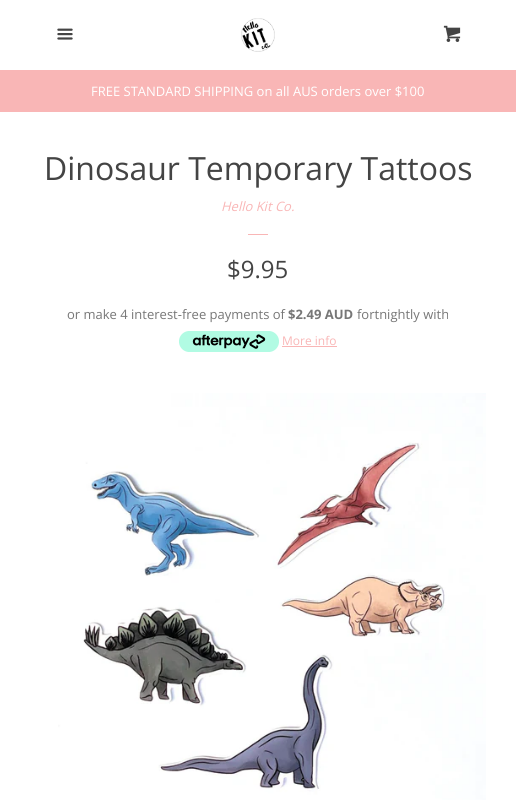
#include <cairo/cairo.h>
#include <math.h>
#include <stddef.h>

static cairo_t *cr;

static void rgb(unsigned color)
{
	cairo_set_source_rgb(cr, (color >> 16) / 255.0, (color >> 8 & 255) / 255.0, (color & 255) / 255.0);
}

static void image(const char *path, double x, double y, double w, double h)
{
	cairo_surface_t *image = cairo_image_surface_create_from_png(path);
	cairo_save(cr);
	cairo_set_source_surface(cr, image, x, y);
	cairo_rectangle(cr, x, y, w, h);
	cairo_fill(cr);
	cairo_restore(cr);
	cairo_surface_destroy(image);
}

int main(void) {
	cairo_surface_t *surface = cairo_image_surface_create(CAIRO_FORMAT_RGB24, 516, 800);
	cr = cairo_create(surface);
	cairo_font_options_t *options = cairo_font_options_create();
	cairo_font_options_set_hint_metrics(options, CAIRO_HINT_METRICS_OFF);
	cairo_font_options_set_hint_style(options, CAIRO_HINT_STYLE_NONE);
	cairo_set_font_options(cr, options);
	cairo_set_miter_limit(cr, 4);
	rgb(0xffffff);
	cairo_paint(cr);
	image("img/1.png", 57, 28, 16, 12);
	image("img/2.png", 241, 18, 34, 34);
	image("img/3.png", 443, 25, 18, 17);
	rgb(0xf9b6b6);
	cairo_rectangle(cr, 0, 70, 516, 42);
	cairo_fill(cr);
	cairo_rectangle(cr, 248, 234, 20, 1);
	cairo_fill(cr);
	image("img/4.png", 179, 331, 100, 21);
	cairo_rectangle(cr, 282, 346, 55, 1);
	cairo_fill(cr);
	image("img/5.png", 58, 393, 428, 407);
	cairo_select_font_face(cr, "Open Sans", CAIRO_FONT_SLANT_NORMAL, CAIRO_FONT_WEIGHT_NORMAL);
	cairo_set_font_size(cr, 13);
	rgb(0xffffff);
	cairo_move_to(cr, 91, 96);
	cairo_show_text(cr, "FREE STANDARD SHIPPING on all AUS orders over $100");
	cairo_set_font_size(cr, 32);
	rgb(0x444444);
	cairo_move_to(cr, 44, 180);
	cairo_show_text(cr, "Dinosaur Temporary Tattoos");
	cairo_select_font_face(cr, "Open Sans", CAIRO_FONT_SLANT_ITALIC, CAIRO_FONT_WEIGHT_NORMAL);
	cairo_set_font_size(cr, 13);
	rgb(0xf9b6b6);
	cairo_move_to(cr, 221, 211);
	cairo_show_text(cr, "Hello Kit Co.");
	cairo_select_font_face(cr, "Open Sans", CAIRO_FONT_SLANT_NORMAL, CAIRO_FONT_WEIGHT_NORMAL);
	cairo_set_font_size(cr, 24);
	rgb(0x444444);
	cairo_move_to(cr, 227, 278);
	cairo_show_text(cr, "$9.95");
	cairo_set_font_size(cr, 13);
	rgb(0x777777);
	cairo_move_to(cr, 67, 319);
	cairo_show_text(cr, "or make 4 interest-free payments of");
	cairo_select_font_face(cr, "Open Sans", CAIRO_FONT_SLANT_NORMAL, CAIRO_FONT_WEIGHT_BOLD);
	cairo_move_to(cr, 288, 319);
	cairo_show_text(cr, "$2.49 AUD");
	cairo_select_font_face(cr, "Open Sans", CAIRO_FONT_SLANT_NORMAL, CAIRO_FONT_WEIGHT_NORMAL);
	cairo_move_to(cr, 357, 319);
	cairo_show_text(cr, "fortnightly with");
	cairo_set_font_size(cr, 12);
	rgb(0xf9b6b6);
	cairo_move_to(cr, 282, 345);
	cairo_show_text(cr, "More info");
	cairo_surface_write_to_png(surface, "page.png");
	cairo_font_options_destroy(options);
	cairo_destroy(cr);
	cairo_surface_destroy(surface);
	return 0;
}
